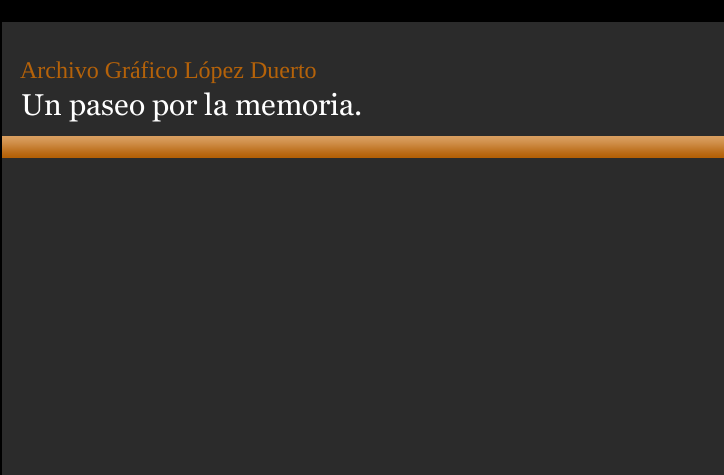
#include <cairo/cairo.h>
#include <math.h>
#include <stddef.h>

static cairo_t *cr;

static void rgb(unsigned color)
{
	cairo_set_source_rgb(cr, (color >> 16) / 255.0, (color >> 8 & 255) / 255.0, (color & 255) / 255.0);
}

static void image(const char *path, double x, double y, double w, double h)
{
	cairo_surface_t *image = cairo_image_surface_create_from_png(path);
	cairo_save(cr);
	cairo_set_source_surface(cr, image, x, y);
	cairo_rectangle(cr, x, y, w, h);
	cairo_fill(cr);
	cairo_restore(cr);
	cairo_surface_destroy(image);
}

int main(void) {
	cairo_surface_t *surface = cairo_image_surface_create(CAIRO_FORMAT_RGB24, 724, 475);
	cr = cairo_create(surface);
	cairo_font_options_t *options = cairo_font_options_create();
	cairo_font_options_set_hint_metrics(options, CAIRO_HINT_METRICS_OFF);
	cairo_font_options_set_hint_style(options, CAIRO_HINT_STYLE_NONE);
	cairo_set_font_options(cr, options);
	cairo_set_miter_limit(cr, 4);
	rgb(0x000000);
	cairo_paint(cr);
	rgb(0x2b2b2b);
	cairo_rectangle(cr, 2, 22, 722, 453);
	cairo_fill(cr);
	image("img/1.png", 22, 92, 339, 30);
	image("img/2.png", 2, 136, 722, 22);
	cairo_select_font_face(cr, "Liberation Serif", CAIRO_FONT_SLANT_NORMAL, CAIRO_FONT_WEIGHT_NORMAL);
	cairo_set_font_size(cr, 24);
	rgb(0xb56209);
	cairo_move_to(cr, 20, 78);
	cairo_show_text(cr, "Archivo Gráfico López Duerto");
	cairo_surface_write_to_png(surface, "page.png");
	cairo_font_options_destroy(options);
	cairo_destroy(cr);
	cairo_surface_destroy(surface);
	return 0;
}
